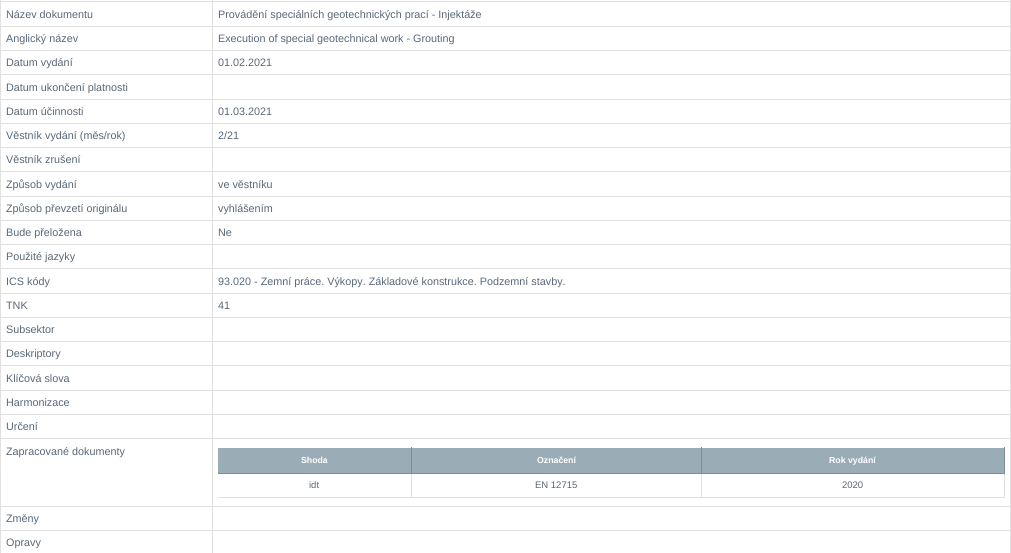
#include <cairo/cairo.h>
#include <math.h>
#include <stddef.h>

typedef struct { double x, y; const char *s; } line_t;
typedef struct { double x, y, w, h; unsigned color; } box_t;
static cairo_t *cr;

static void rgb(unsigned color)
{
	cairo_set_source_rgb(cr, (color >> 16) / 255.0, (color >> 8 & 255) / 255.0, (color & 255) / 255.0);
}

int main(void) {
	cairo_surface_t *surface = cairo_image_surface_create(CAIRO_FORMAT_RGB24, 1011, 553);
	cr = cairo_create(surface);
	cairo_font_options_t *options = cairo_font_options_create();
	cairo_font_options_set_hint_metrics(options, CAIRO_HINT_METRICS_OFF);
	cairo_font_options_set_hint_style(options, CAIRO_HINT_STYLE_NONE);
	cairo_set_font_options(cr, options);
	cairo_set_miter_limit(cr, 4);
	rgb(0xffffff);
	cairo_paint(cr);
	{
		static const box_t items[] = {
			{0, 0, 1, 553, 0xe1e1e1},
			{212, 1, 799, 1, 0xe1e1e1},
			{212, 26, 799, 1, 0xe1e1e1},
			{212, 50, 799, 1, 0xe1e1e1},
			{212, 74, 799, 1, 0xe1e1e1},
			{212, 99, 799, 1, 0xe1e1e1},
			{212, 123, 799, 1, 0xe1e1e1},
			{212, 147, 799, 1, 0xe1e1e1},
			{212, 171, 799, 1, 0xe1e1e1},
			{212, 196, 799, 1, 0xe1e1e1},
			{212, 220, 799, 1, 0xe1e1e1},
			{212, 244, 799, 1, 0xe1e1e1},
			{212, 268, 799, 1, 0xe1e1e1},
			{212, 293, 799, 1, 0xe1e1e1},
			{212, 317, 799, 1, 0xe1e1e1},
			{212, 341, 799, 1, 0xe1e1e1},
			{212, 365, 799, 1, 0xe1e1e1},
			{212, 390, 799, 1, 0xe1e1e1},
			{212, 414, 799, 1, 0xe1e1e1},
			{212, 438, 799, 1, 0xe1e1e1},
			{212, 506, 799, 1, 0xe1e1e1},
			{212, 530, 799, 1, 0xe1e1e1},
			{212, 530, 1, 23, 0xe1e1e1},
			{0, 530, 213, 1, 0xe1e1e1},
			{212, 506, 1, 25, 0xe1e1e1},
			{0, 506, 213, 1, 0xe1e1e1},
			{212, 438, 1, 69, 0xe1e1e1},
			{0, 438, 213, 1, 0xe1e1e1},
			{212, 414, 1, 25, 0xe1e1e1},
			{0, 414, 213, 1, 0xe1e1e1},
			{212, 390, 1, 25, 0xe1e1e1},
			{0, 390, 213, 1, 0xe1e1e1},
			{212, 365, 1, 26, 0xe1e1e1},
			{0, 365, 213, 1, 0xe1e1e1},
			{212, 341, 1, 25, 0xe1e1e1},
			{0, 341, 213, 1, 0xe1e1e1},
			{212, 317, 1, 25, 0xe1e1e1},
			{0, 317, 213, 1, 0xe1e1e1},
			{212, 293, 1, 25, 0xe1e1e1},
			{0, 293, 213, 1, 0xe1e1e1},
			{212, 268, 1, 26, 0xe1e1e1},
			{0, 268, 213, 1, 0xe1e1e1},
			{212, 244, 1, 25, 0xe1e1e1},
			{0, 244, 213, 1, 0xe1e1e1},
			{212, 220, 1, 25, 0xe1e1e1},
			{0, 220, 213, 1, 0xe1e1e1},
			{212, 196, 1, 25, 0xe1e1e1},
			{0, 196, 213, 1, 0xe1e1e1},
			{212, 171, 1, 26, 0xe1e1e1},
			{0, 171, 213, 1, 0xe1e1e1},
			{212, 147, 1, 25, 0xe1e1e1},
			{0, 147, 213, 1, 0xe1e1e1},
			{212, 123, 1, 25, 0xe1e1e1},
			{0, 123, 213, 1, 0xe1e1e1},
			{212, 99, 1, 25, 0xe1e1e1},
			{0, 99, 213, 1, 0xe1e1e1},
			{212, 74, 1, 26, 0xe1e1e1},
			{0, 74, 213, 1, 0xe1e1e1},
			{212, 50, 1, 25, 0xe1e1e1},
			{0, 50, 213, 1, 0xe1e1e1},
			{212, 26, 1, 25, 0xe1e1e1},
			{0, 26, 213, 1, 0xe1e1e1},
			{212, 1, 1, 26, 0xe1e1e1},
			{0, 1, 213, 1, 0xe1e1e1},
			{212, 0, 1, 2, 0xe1e1e1},
			{1010, 530, 1, 23, 0xe1e1e1},
			{1010, 506, 1, 25, 0xe1e1e1},
			{1010, 438, 1, 69, 0xe1e1e1},
			{1010, 414, 1, 25, 0xe1e1e1},
			{1010, 390, 1, 25, 0xe1e1e1},
			{1010, 365, 1, 26, 0xe1e1e1},
			{1010, 341, 1, 25, 0xe1e1e1},
			{1010, 317, 1, 25, 0xe1e1e1},
			{1010, 293, 1, 25, 0xe1e1e1},
			{1010, 268, 1, 26, 0xe1e1e1},
			{1010, 244, 1, 25, 0xe1e1e1},
			{1010, 220, 1, 25, 0xe1e1e1},
			{1010, 196, 1, 25, 0xe1e1e1},
			{1010, 171, 1, 26, 0xe1e1e1},
			{1010, 147, 1, 25, 0xe1e1e1},
			{1010, 123, 1, 25, 0xe1e1e1},
			{1010, 99, 1, 25, 0xe1e1e1},
			{1010, 74, 1, 26, 0xe1e1e1},
			{1010, 50, 1, 25, 0xe1e1e1},
			{1010, 26, 1, 25, 0xe1e1e1},
			{1010, 0, 1, 27, 0xe1e1e1},
			{218, 448, 193, 25, 0x9aadb7},
			{1004, 473, 1, 25, 0xe1e1e1},
			{1004, 447, 1, 27, 0x7c8f99},
			{701, 497, 304, 1, 0xe1e1e1},
			{701, 473, 1, 25, 0xe1e1e1},
			{701, 473, 304, 1, 0x7c8f99},
			{701, 447, 1, 27, 0x7c8f99},
			{411, 497, 291, 1, 0xe1e1e1},
			{411, 473, 1, 25, 0xe1e1e1},
			{411, 473, 291, 1, 0x7c8f99},
			{411, 447, 1, 27, 0x7c8f99},
			{218, 473, 194, 1, 0x7c8f99},
			{412, 448, 289, 25, 0x9aadb7},
			{702, 448, 302, 25, 0x9aadb7},
			{218, 497, 194, 1, 0xe1e1e1},
		};
		for (size_t i = 0; i < sizeof items / sizeof *items; i++) {
			rgb(items[i].color);
			cairo_rectangle(cr, items[i].x, items[i].y, items[i].w, items[i].h);
			cairo_fill(cr);
		}
	}
	cairo_select_font_face(cr, "Liberation Sans", CAIRO_FONT_SLANT_NORMAL, CAIRO_FONT_WEIGHT_NORMAL);
	cairo_set_font_size(cr, 10.8);
	rgb(0x576879);
	{
		static const line_t items[] = {
			{6, 18, "Název dokumentu"},
			{218, 18, "Provádění speciálních geotechnických prací - Injektáže"},
			{6, 42, "Anglický název"},
			{218, 42, "Execution of special geotechnical work - Grouting"},
			{6, 66, "Datum vydání"},
			{218, 66, "01.02.2021"},
			{6, 91, "Datum ukončení platnosti"},
			{6, 115, "Datum účinnosti"},
			{218, 115, "01.03.2021"},
			{6, 139, "Věstník vydání (měs/rok)"},
			{218, 139, "2/21"},
			{6, 163, "Věstník zrušení"},
			{6, 188, "Způsob vydání"},
			{218, 188, "ve věstníku"},
			{6, 212, "Způsob převzetí originálu"},
			{218, 212, "vyhlášením"},
			{6, 236, "Bude přeložena"},
			{218, 236, "Ne"},
			{6, 260, "Použité jazyky"},
			{6, 285, "ICS kódy"},
			{218, 285, "93.020 - Zemní práce. Výkopy. Základové konstrukce. Podzemní stavby."},
			{6, 309, "TNK"},
			{218, 309, "41"},
			{6, 333, "Subsektor"},
			{6, 357, "Deskriptory"},
			{6, 382, "Klíčová slova"},
			{6, 406, "Harmonizace"},
			{6, 430, "Určení"},
			{6, 455, "Zapracované dokumenty"},
		};
		for (size_t i = 0; i < sizeof items / sizeof *items; i++) {
			cairo_move_to(cr, items[i].x, items[i].y);
			cairo_show_text(cr, items[i].s);
		}
	}
	cairo_select_font_face(cr, "Liberation Sans", CAIRO_FONT_SLANT_NORMAL, CAIRO_FONT_WEIGHT_BOLD);
	cairo_set_font_size(cr, 8.75);
	rgb(0xffffff);
	{
		static const line_t items[] = {
			{301, 463, "Shoda"},
			{537, 463, "Označení"},
			{829, 463, "Rok vydání"},
		};
		for (size_t i = 0; i < sizeof items / sizeof *items; i++) {
			cairo_move_to(cr, items[i].x, items[i].y);
			cairo_show_text(cr, items[i].s);
		}
	}
	cairo_select_font_face(cr, "Liberation Sans", CAIRO_FONT_SLANT_NORMAL, CAIRO_FONT_WEIGHT_NORMAL);
	cairo_set_font_size(cr, 9.5);
	rgb(0x576879);
	{
		static const line_t items[] = {
			{309, 488, "idt"},
			{535, 488, "EN 12715"},
			{842, 488, "2020"},
		};
		for (size_t i = 0; i < sizeof items / sizeof *items; i++) {
			cairo_move_to(cr, items[i].x, items[i].y);
			cairo_show_text(cr, items[i].s);
		}
	}
	cairo_set_font_size(cr, 10.8);
	cairo_move_to(cr, 6, 522);
	cairo_show_text(cr, "Změny");
	cairo_move_to(cr, 6, 546);
	cairo_show_text(cr, "Opravy");
	cairo_surface_write_to_png(surface, "page.png");
	cairo_font_options_destroy(options);
	cairo_destroy(cr);
	cairo_surface_destroy(surface);
	return 0;
}
